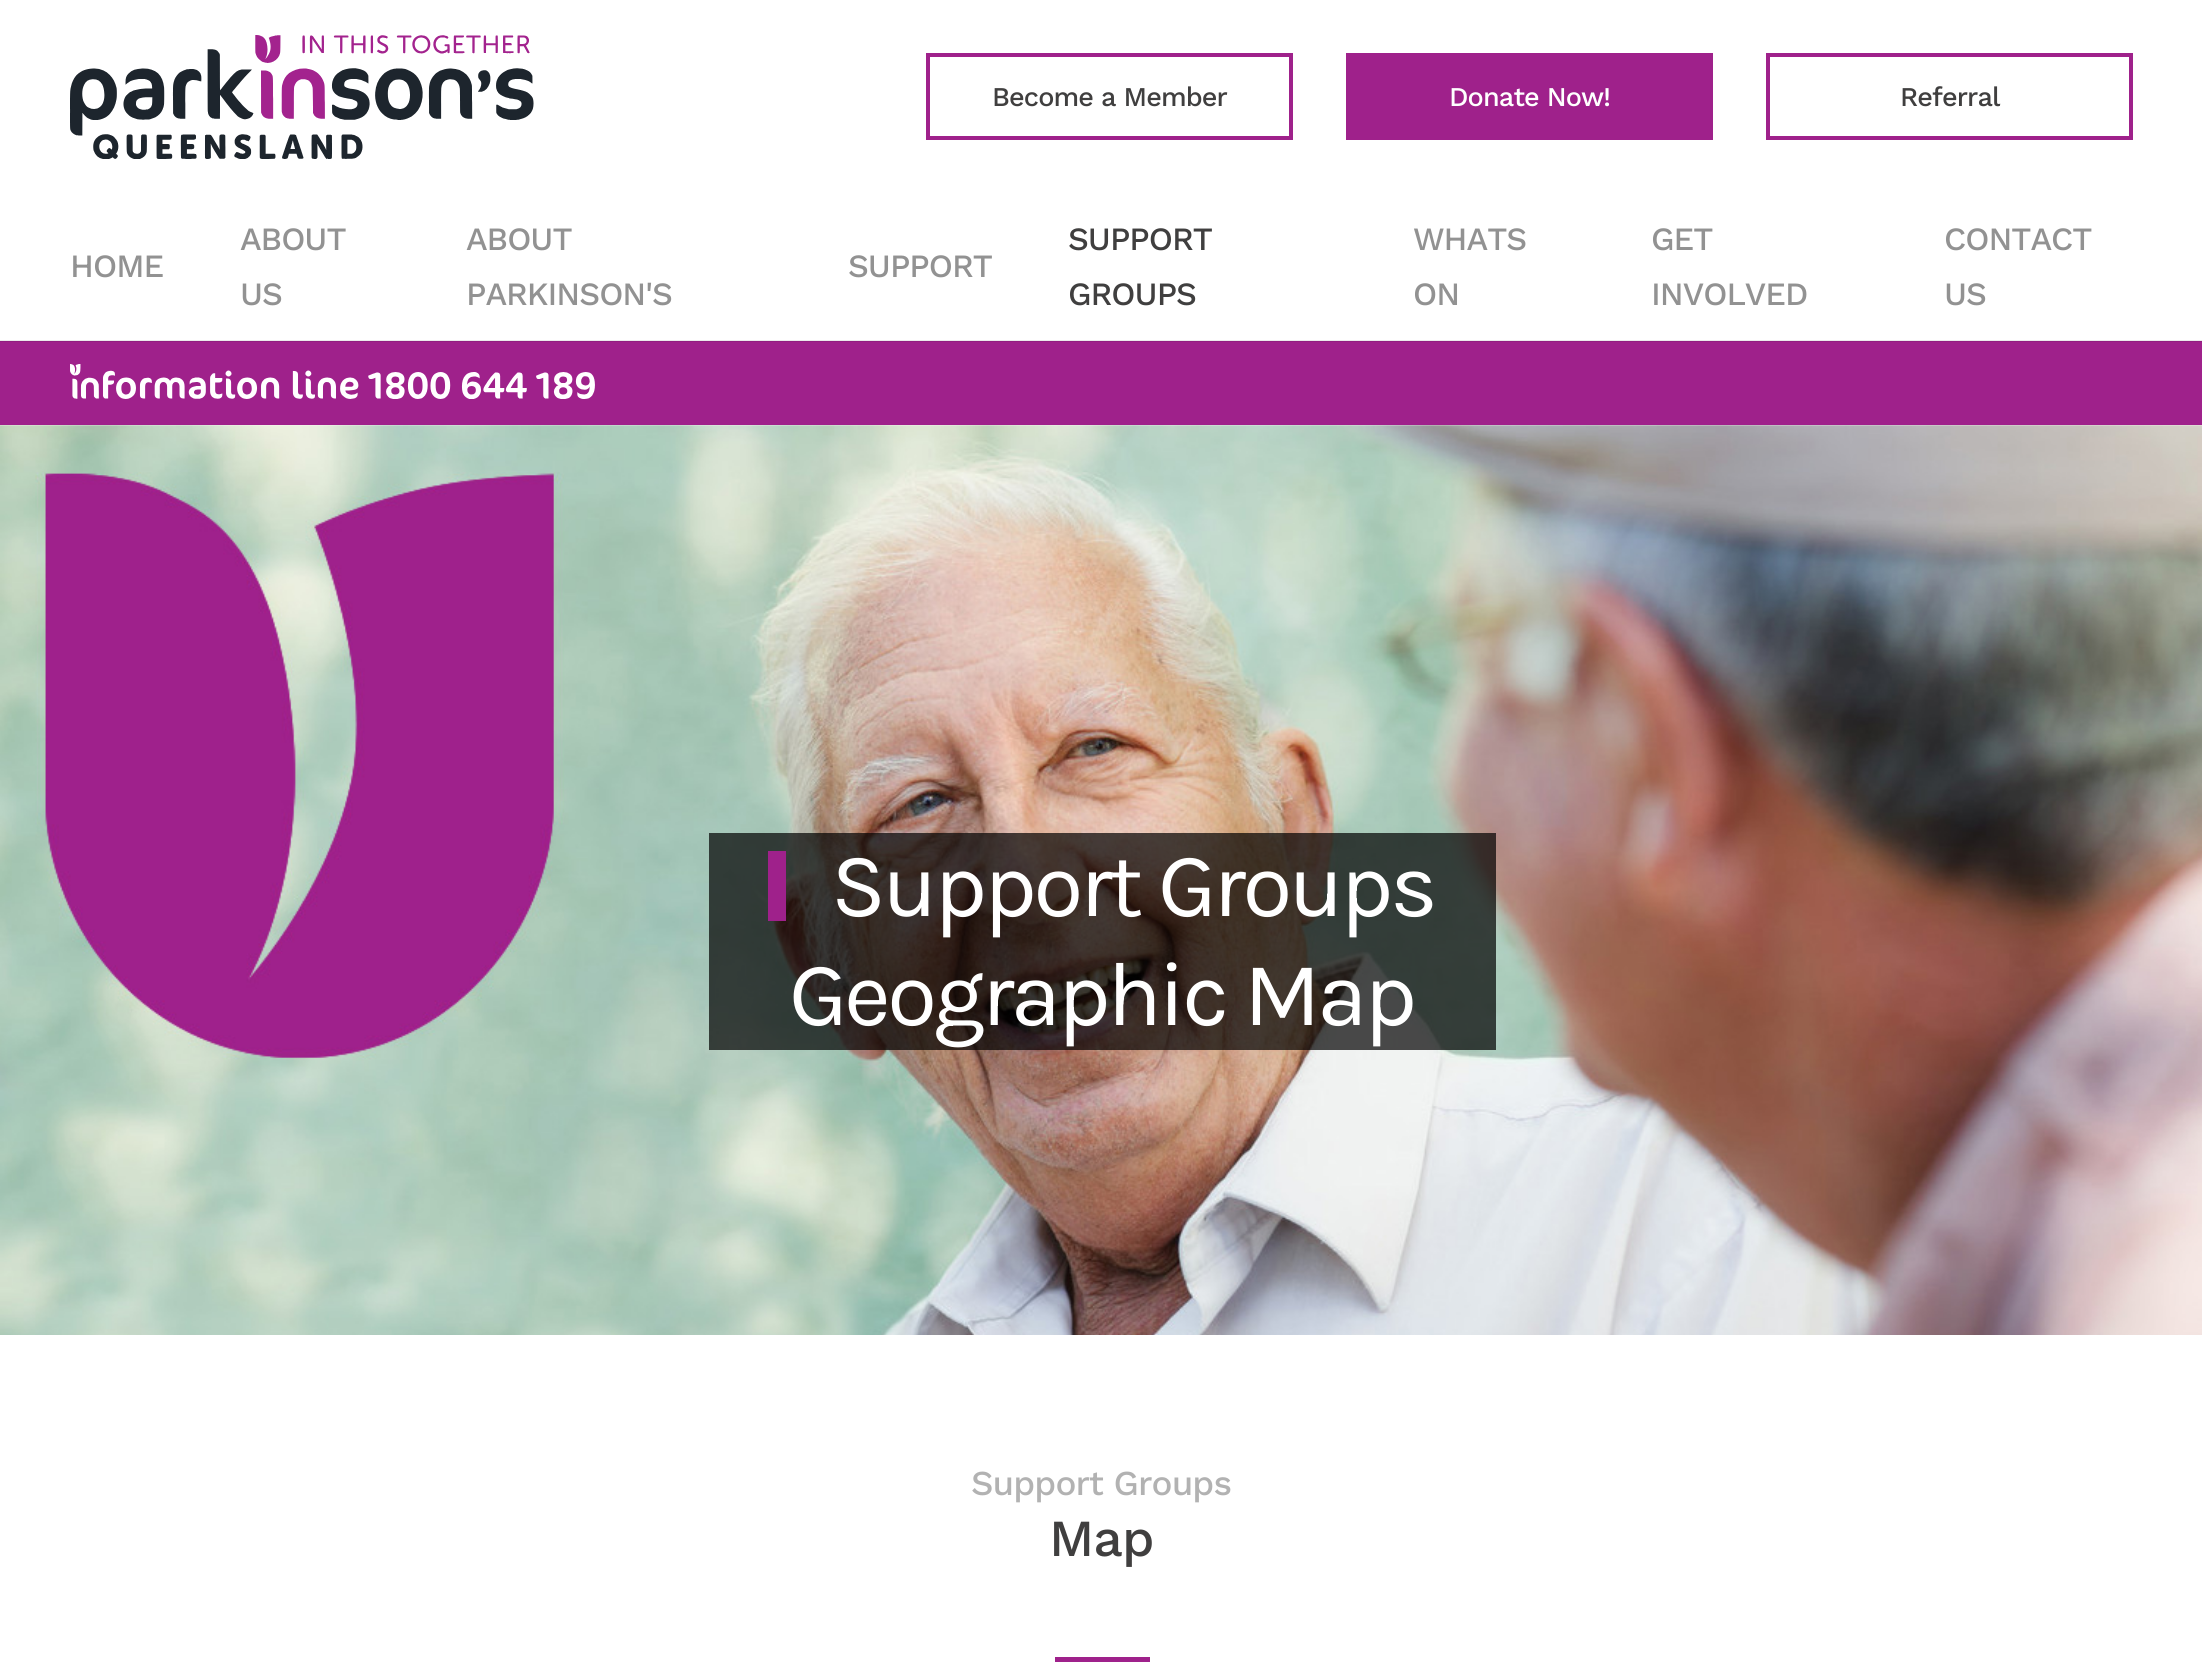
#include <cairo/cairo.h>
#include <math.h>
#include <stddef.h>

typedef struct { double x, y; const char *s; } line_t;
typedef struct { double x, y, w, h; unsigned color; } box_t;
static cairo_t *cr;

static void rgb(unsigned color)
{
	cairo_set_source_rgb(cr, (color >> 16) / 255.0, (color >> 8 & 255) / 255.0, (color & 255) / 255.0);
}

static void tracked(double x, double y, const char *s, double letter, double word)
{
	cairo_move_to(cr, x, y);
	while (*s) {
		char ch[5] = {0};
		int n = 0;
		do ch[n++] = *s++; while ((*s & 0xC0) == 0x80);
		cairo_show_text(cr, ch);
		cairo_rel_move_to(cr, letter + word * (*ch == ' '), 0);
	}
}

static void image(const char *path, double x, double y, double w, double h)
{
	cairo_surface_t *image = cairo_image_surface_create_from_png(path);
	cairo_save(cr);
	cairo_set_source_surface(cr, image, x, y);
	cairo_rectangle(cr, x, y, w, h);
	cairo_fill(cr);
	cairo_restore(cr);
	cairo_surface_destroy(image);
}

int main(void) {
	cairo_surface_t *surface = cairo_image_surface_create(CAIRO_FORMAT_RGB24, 2202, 1669);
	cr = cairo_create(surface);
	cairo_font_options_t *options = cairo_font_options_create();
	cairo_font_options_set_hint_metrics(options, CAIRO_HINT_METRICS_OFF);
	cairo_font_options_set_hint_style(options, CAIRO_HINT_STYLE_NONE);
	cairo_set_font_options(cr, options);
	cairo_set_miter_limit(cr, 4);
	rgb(0xffffff);
	cairo_paint(cr);
	image("img/1.png", 70, 35, 464, 124);
	cairo_rectangle(cr, 928, 55, 363, 83);
	rgb(0x9f218b);
	cairo_set_line_width(cr, 4);
	cairo_stroke(cr);
	cairo_rectangle(cr, 1346, 53, 367, 87);
	cairo_fill(cr);
	cairo_rectangle(cr, 1768, 55, 363, 83);
	cairo_stroke(cr);
	{
		static const box_t items[] = {
			{0, 340, 2202, 1, 0xebebeb},
			{0, 342, 2202, 83, 0x9f218b},
			{0, 341, 2202, 1, 0x921e80},
		};
		for (size_t i = 0; i < sizeof items / sizeof *items; i++) {
			rgb(items[i].color);
			cairo_rectangle(cr, items[i].x, items[i].y, items[i].w, items[i].h);
			cairo_fill(cr);
		}
	}
	image("img/2.png", 70, 364, 525, 35);
	image("img/3.png", 0, 425, 2202, 910);
	cairo_set_source_rgba(cr, 0, 0, 0, 0.7);
	cairo_rectangle(cr, 709, 833, 787, 217);
	cairo_fill(cr);
	rgb(0x9f218b);
	cairo_rectangle(cr, 768, 851, 18, 70);
	cairo_fill(cr);
	cairo_rectangle(cr, 1055, 1657, 95, 5);
	cairo_fill(cr);
	cairo_select_font_face(cr, "Work Sans Medium", CAIRO_FONT_SLANT_NORMAL, CAIRO_FONT_WEIGHT_NORMAL);
	cairo_set_font_size(cr, 27.1);
	rgb(0x403f3f);
	tracked(992, 106, "Become a Member", -0.9, 0);
	rgb(0xffffff);
	tracked(1449, 106, "Donate Now!", -0.9, 0);
	rgb(0x403f3f);
	tracked(1900, 106, "Referral", -0.9, 0);
	cairo_set_font_size(cr, 32.5);
	rgb(0x929292);
	{
		static const line_t items[] = {
			{70, 277, "HOME"},
			{240, 250, "ABOUT"},
			{240, 305, "US"},
			{466, 250, "ABOUT"},
			{466, 305, "PARKINSON'S"},
			{848, 277, "SUPPORT"},
		};
		for (size_t i = 0; i < sizeof items / sizeof *items; i++) {
			tracked(items[i].x, items[i].y, items[i].s, -1, 0);
		}
	}
	rgb(0x403f3f);
	tracked(1068, 250, "SUPPORT", -1, 0);
	tracked(1068, 305, "GROUPS", -1, 0);
	rgb(0x929292);
	{
		static const line_t items[] = {
			{1413, 250, "WHATS"},
			{1413, 305, "ON"},
			{1651, 250, "GET"},
			{1651, 305, "INVOLVED"},
			{1944, 250, "CONTACT"},
			{1944, 305, "US"},
		};
		for (size_t i = 0; i < sizeof items / sizeof *items; i++) {
			tracked(items[i].x, items[i].y, items[i].s, -1, 0);
		}
	}
	cairo_select_font_face(cr, "Karla", CAIRO_FONT_SLANT_NORMAL, CAIRO_FONT_WEIGHT_NORMAL);
	cairo_set_font_size(cr, 91);
	rgb(0xffffff);
	tracked(831, 916, "Support Groups", -3.5, 0);
	tracked(789, 1025, "Geographic Map", -3.5, 0);
	cairo_select_font_face(cr, "Work Sans Medium", CAIRO_FONT_SLANT_NORMAL, CAIRO_FONT_WEIGHT_NORMAL);
	cairo_set_font_size(cr, 35);
	rgb(0xb2b2b2);
	tracked(971, 1495, "Support Groups", -0.9, 0);
	cairo_set_font_size(cr, 52);
	rgb(0x403f3f);
	tracked(1049, 1556, "Map", -1, 0);
	cairo_surface_write_to_png(surface, "page.png");
	cairo_font_options_destroy(options);
	cairo_destroy(cr);
	cairo_surface_destroy(surface);
	return 0;
}
